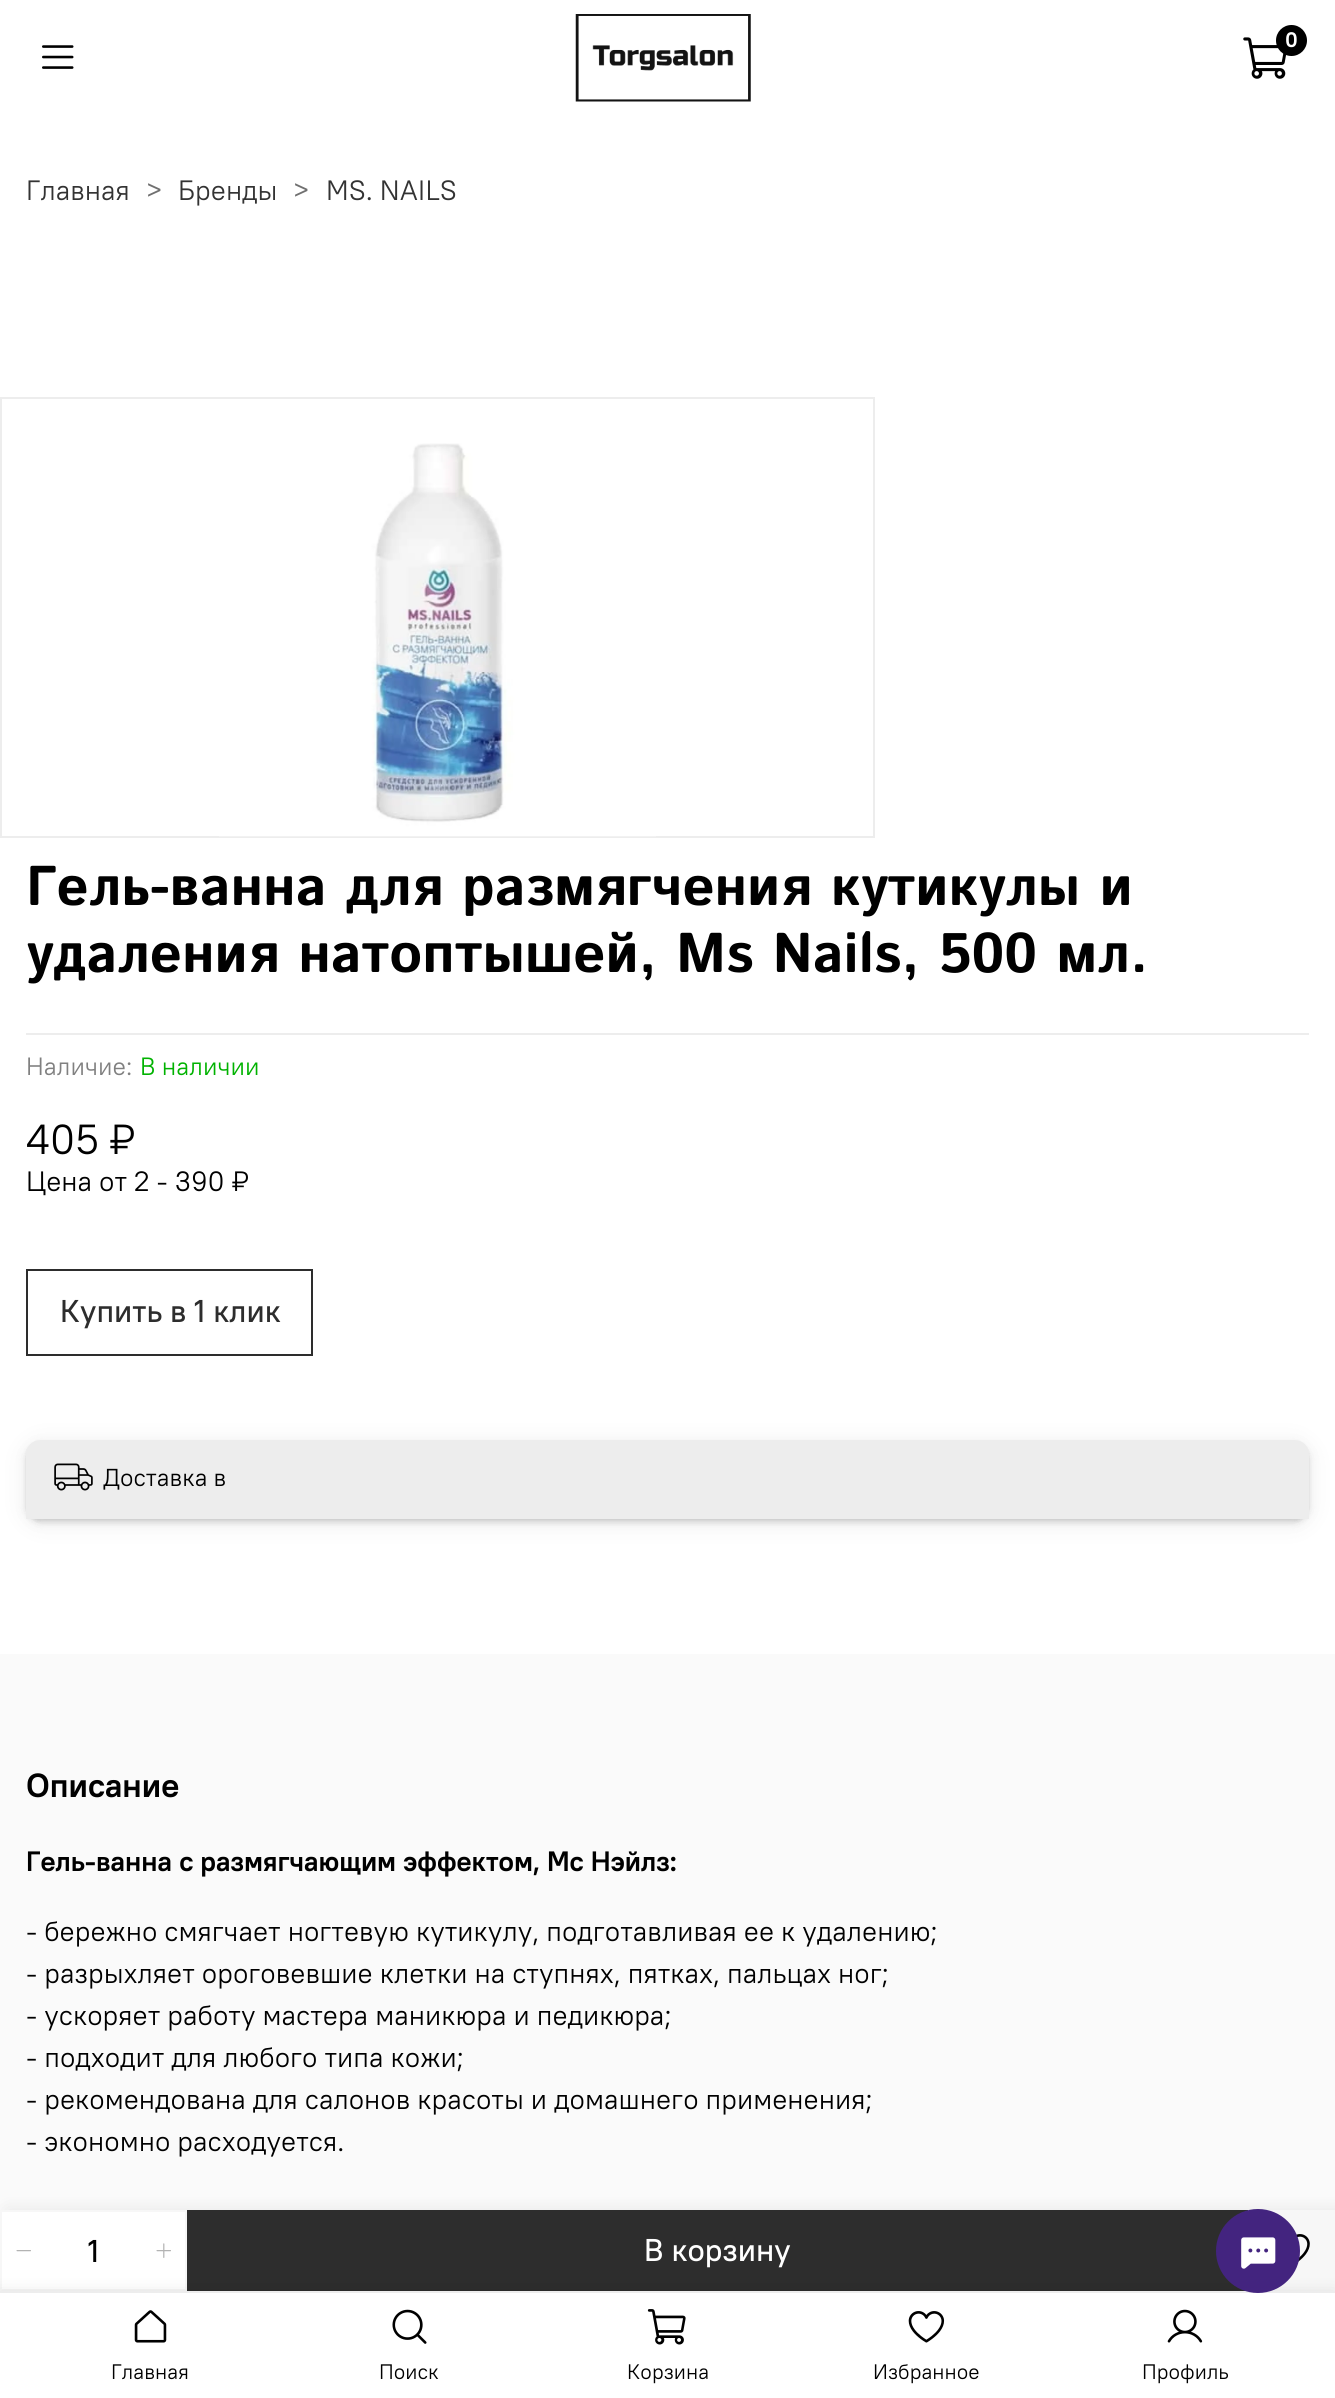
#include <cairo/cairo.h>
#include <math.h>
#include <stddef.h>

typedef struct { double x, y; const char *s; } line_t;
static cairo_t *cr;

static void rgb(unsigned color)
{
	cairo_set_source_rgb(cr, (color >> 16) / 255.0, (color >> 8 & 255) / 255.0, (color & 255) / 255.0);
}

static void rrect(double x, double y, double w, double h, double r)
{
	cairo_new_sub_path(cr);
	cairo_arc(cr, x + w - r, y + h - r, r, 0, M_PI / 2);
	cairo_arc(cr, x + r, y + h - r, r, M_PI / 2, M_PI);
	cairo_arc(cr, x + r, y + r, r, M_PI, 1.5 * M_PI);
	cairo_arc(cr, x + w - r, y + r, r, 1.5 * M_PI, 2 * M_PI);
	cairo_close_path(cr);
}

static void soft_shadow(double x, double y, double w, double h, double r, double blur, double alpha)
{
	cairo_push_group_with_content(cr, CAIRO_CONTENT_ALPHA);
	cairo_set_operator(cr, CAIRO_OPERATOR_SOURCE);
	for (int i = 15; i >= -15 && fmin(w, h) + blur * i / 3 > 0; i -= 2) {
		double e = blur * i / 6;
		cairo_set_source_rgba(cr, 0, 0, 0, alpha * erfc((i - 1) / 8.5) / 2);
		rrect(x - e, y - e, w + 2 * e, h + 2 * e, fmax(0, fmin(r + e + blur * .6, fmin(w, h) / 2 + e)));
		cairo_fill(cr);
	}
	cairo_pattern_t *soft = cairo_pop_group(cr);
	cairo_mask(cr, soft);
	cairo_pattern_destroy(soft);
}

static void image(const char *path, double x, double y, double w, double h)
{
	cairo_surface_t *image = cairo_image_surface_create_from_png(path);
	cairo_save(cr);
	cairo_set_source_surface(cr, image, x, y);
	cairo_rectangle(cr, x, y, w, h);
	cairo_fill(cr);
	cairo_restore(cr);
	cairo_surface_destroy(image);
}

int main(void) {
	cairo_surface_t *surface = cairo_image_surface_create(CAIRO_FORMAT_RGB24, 1335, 2398);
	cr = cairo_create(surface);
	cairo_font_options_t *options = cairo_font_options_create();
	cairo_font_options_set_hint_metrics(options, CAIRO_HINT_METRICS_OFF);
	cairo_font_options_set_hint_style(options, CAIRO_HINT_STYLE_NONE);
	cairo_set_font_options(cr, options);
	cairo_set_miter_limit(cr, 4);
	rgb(0xffffff);
	cairo_paint(cr);
	image("img/1.png", 575, 14, 176, 88);
	image("img/2.png", 1243, 37, 43, 42);
	rgb(0x000000);
	cairo_arc(cr, 1291.5, 40.5, 15.5, 0, 2 * M_PI);
	cairo_fill(cr);
	image("img/3.png", 42, 45, 32, 24);
	cairo_rectangle(cr, 1, 398, 873, 439);
	rgb(0xededed);
	cairo_stroke(cr);
	image("img/4.png", 219, 443, 437, 394);
	cairo_rectangle(cr, 26, 1033, 1283, 2);
	cairo_fill(cr);
	cairo_rectangle(cr, 27, 1270, 285, 85);
	rgb(0x2d2d2d);
	cairo_stroke(cr);
	rgb(0xfafafa);
	cairo_rectangle(cr, 0, 1654, 1335, 556);
	cairo_fill(cr);
	rgb(0x000000);
	soft_shadow(7, 2210, 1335, 81, 0, 9, 0.08);
	rgb(0xffffff);
	cairo_rectangle(cr, 1, 2211, 185, 79);
	cairo_fill_preserve(cr);
	rgb(0xf7f7f7);
	cairo_stroke(cr);
	image("img/5.png", 16, 2250, 15, 2);
	image("img/6.png", 156, 2243, 15, 15);
	rgb(0x2d2d2d);
	cairo_rectangle(cr, 187, 2210, 1061, 81);
	cairo_fill(cr);
	rgb(0xf7f7f7);
	cairo_rectangle(cr, 1248, 2210, 87, 81);
	cairo_fill(cr);
	image("img/7.png", 1296, 2234, 14, 28);
	rgb(0x000000);
	soft_shadow(26, 1444, 1283, 79, 14, 14, 0.05);
	soft_shadow(26, 1444, 1283, 79, 14, 7, 0.05);
	soft_shadow(26, 1444, 1283, 79, 14, 3.5, 0.05);
	soft_shadow(26, 1444, 1283, 79, 14, 2, 0.05);
	soft_shadow(26, 1442, 1283, 79, 14, 1, 0.05);
	rgb(0xededed);
	cairo_new_path(cr);
	cairo_move_to(cr, 40, 1440);
	cairo_line_to(cr, 1295, 1440);
	cairo_curve_to(cr, 1302.5, 1440, 1309, 1446.5, 1309, 1454);
	cairo_line_to(cr, 1309, 1519);
	cairo_line_to(cr, 26, 1519);
	cairo_line_to(cr, 26, 1454);
	cairo_curve_to(cr, 26, 1446.5, 32.5, 1440, 40, 1440);
	cairo_close_path(cr);
	cairo_fill(cr);
	image("img/8.png", 54, 1463, 39, 28);
	rgb(0x000000);
	soft_shadow(0, 2294, 1335, 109, 0, 9, 0.12);
	rgb(0xededed);
	cairo_rectangle(cr, 0, 2291, 1335, 2);
	cairo_fill(cr);
	rgb(0x43247f);
	cairo_arc(cr, 1258, 2251, 42, 0, 2 * M_PI);
	cairo_fill(cr);
	image("img/9.png", 1241, 2237, 35, 32);
	rgb(0xffffff);
	cairo_rectangle(cr, 0, 2293, 1335, 105);
	cairo_fill(cr);
	image("img/10.png", 134, 2310, 33, 33);
	image("img/11.png", 392, 2309, 35, 35);
	image("img/12.png", 647, 2309, 39, 36);
	image("img/13.png", 908, 2311, 37, 32);
	image("img/14.png", 1167, 2309, 36, 34);
	cairo_select_font_face(cr, "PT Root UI", CAIRO_FONT_SLANT_NORMAL, CAIRO_FONT_WEIGHT_BOLD);
	cairo_set_font_size(cr, 21);
	cairo_move_to(cr, 1285, 47);
	cairo_show_text(cr, "0");
	cairo_select_font_face(cr, "PT Root UI", CAIRO_FONT_SLANT_NORMAL, CAIRO_FONT_WEIGHT_NORMAL);
	cairo_set_font_size(cr, 28);
	rgb(0x333333);
	cairo_move_to(cr, 26, 200);
	cairo_show_text(cr, "Главная");
	rgb(0x707070);
	cairo_move_to(cr, 146, 200);
	cairo_show_text(cr, ">");
	rgb(0x333333);
	cairo_move_to(cr, 178, 200);
	cairo_show_text(cr, "Бренды");
	rgb(0x707070);
	cairo_move_to(cr, 293, 200);
	cairo_show_text(cr, ">");
	rgb(0x333333);
	cairo_move_to(cr, 326, 200);
	cairo_show_text(cr, "MS. NAILS");
	cairo_select_font_face(cr, "Istok Web", CAIRO_FONT_SLANT_NORMAL, CAIRO_FONT_WEIGHT_BOLD);
	cairo_set_font_size(cr, 56);
	rgb(0x000000);
	cairo_move_to(cr, 26, 905);
	cairo_show_text(cr, "Гель-ванна для размягчения кутикулы и");
	cairo_move_to(cr, 26, 972);
	cairo_show_text(cr, "удаления натоптышей, Ms Nails, 500 мл.");
	cairo_select_font_face(cr, "PT Root UI", CAIRO_FONT_SLANT_NORMAL, CAIRO_FONT_WEIGHT_NORMAL);
	cairo_set_font_size(cr, 25);
	rgb(0x808080);
	cairo_move_to(cr, 26, 1075);
	cairo_show_text(cr, "Наличие:");
	rgb(0x00b200);
	cairo_move_to(cr, 140, 1075);
	cairo_show_text(cr, "В наличии");
	cairo_set_font_size(cr, 42);
	rgb(0x000000);
	cairo_move_to(cr, 26, 1154);
	cairo_show_text(cr, "405 ₽");
	cairo_set_font_size(cr, 28);
	cairo_move_to(cr, 26, 1191);
	cairo_show_text(cr, "Цена от 2 - 390 ₽");
	cairo_select_font_face(cr, "PT Root UI Medium", CAIRO_FONT_SLANT_NORMAL, CAIRO_FONT_WEIGHT_NORMAL);
	cairo_set_font_size(cr, 31.5);
	rgb(0x2d2d2d);
	cairo_move_to(cr, 60, 1322);
	cairo_show_text(cr, "Купить в 1 клик");
	rgb(0x000000);
	cairo_move_to(cr, 88, 2262);
	cairo_show_text(cr, "1");
	rgb(0xffffff);
	cairo_move_to(cr, 644, 2261);
	cairo_show_text(cr, "В корзину");
	cairo_select_font_face(cr, "PT Root UI", CAIRO_FONT_SLANT_NORMAL, CAIRO_FONT_WEIGHT_NORMAL);
	cairo_set_font_size(cr, 24.5);
	rgb(0x000000);
	cairo_move_to(cr, 103, 1486);
	cairo_show_text(cr, "Доставка в");
	cairo_select_font_face(cr, "PT Root UI", CAIRO_FONT_SLANT_NORMAL, CAIRO_FONT_WEIGHT_BOLD);
	cairo_set_font_size(cr, 33.5);
	cairo_move_to(cr, 26, 1797);
	cairo_show_text(cr, "Описание");
	cairo_set_font_size(cr, 28);
	cairo_move_to(cr, 26, 1871);
	cairo_show_text(cr, "Гель-ванна с размягчающим эффектом, Мс Нэйлз:");
	cairo_select_font_face(cr, "PT Root UI", CAIRO_FONT_SLANT_NORMAL, CAIRO_FONT_WEIGHT_NORMAL);
	{
		static const line_t items[] = {
			{26, 1941, "- бережно смягчает ногтевую кутикулу, подготавливая ее к удалению;"},
			{26, 1983, "- разрыхляет ороговевшие клетки на ступнях, пятках, пальцах ног;"},
			{26, 2025, "- ускоряет работу мастера маникюра и педикюра;"},
			{26, 2067, "- подходит для любого типа кожи;"},
			{26, 2109, "- рекомендована для салонов красоты и домашнего применения;"},
			{26, 2151, "- экономно расходуется."},
		};
		for (size_t i = 0; i < sizeof items / sizeof *items; i++) {
			cairo_move_to(cr, items[i].x, items[i].y);
			cairo_show_text(cr, items[i].s);
		}
	}
	cairo_set_font_size(cr, 21);
	{
		static const line_t items[] = {
			{111, 2379, "Главная"},
			{379, 2379, "Поиск"},
			{627, 2379, "Корзина"},
			{873, 2379, "Избранное"},
			{1142, 2379, "Профиль"},
		};
		for (size_t i = 0; i < sizeof items / sizeof *items; i++) {
			cairo_move_to(cr, items[i].x, items[i].y);
			cairo_show_text(cr, items[i].s);
		}
	}
	cairo_surface_write_to_png(surface, "page.png");
	cairo_font_options_destroy(options);
	cairo_destroy(cr);
	cairo_surface_destroy(surface);
	return 0;
}
